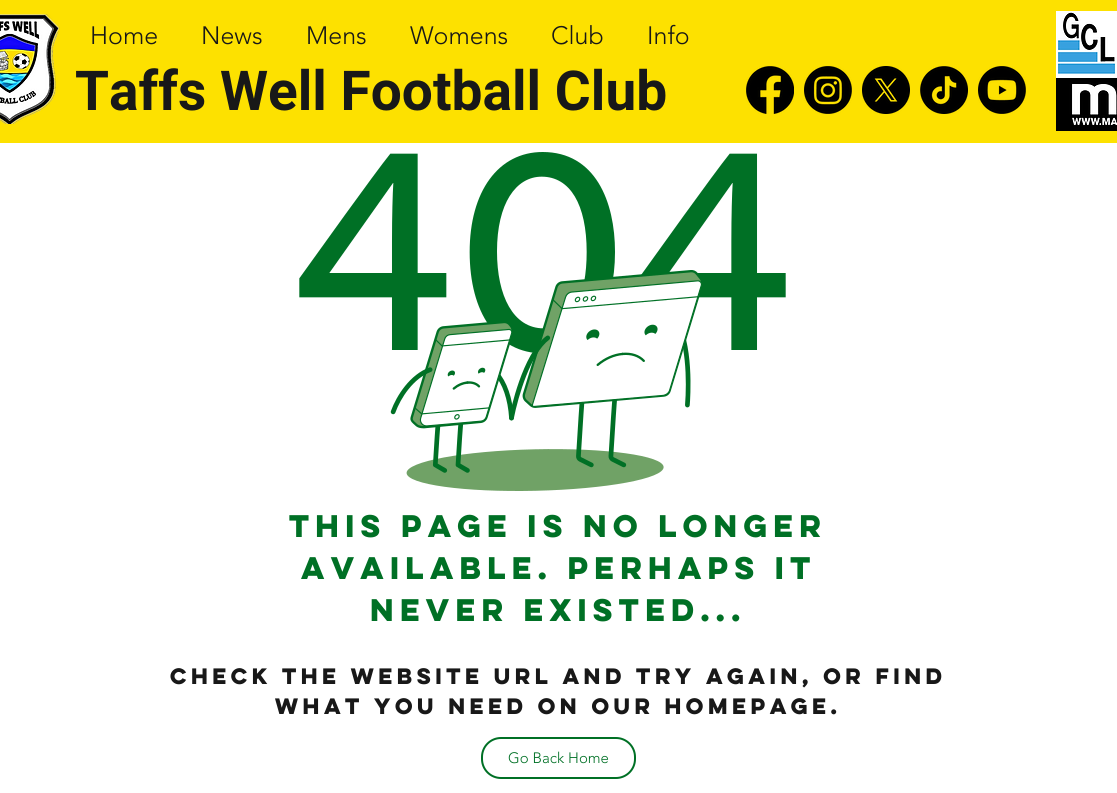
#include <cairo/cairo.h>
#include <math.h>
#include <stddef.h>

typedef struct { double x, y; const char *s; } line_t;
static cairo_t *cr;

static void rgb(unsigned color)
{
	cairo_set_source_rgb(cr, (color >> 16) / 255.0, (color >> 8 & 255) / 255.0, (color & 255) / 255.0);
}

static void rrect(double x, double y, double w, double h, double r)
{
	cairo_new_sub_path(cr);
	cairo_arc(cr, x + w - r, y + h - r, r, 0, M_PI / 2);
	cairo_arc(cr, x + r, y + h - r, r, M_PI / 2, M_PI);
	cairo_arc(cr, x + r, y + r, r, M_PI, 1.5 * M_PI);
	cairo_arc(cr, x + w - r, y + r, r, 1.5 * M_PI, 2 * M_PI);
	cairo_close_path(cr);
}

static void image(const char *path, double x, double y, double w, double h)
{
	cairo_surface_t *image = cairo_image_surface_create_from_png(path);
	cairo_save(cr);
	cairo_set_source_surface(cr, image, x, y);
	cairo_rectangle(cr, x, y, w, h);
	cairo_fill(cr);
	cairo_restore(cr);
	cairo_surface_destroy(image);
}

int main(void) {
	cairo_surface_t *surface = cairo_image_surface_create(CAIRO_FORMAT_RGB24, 1117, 793);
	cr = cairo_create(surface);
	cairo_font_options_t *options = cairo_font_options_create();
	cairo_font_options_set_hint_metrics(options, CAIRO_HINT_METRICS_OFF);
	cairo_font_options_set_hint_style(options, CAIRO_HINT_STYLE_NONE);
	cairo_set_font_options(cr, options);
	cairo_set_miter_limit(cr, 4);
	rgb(0xffffff);
	cairo_paint(cr);
	rgb(0xfde100);
	cairo_rectangle(cr, 0, 0, 1117, 143);
	cairo_fill(cr);
	image("img/1.png", 0, 14, 60, 110);
	image("img/2.png", 1056, 11, 61, 67);
	image("img/3.png", 746, 66, 48, 48);
	image("img/4.png", 804, 66, 48, 48);
	image("img/5.png", 862, 66, 48, 48);
	image("img/6.png", 920, 66, 48, 48);
	image("img/7.png", 978, 66, 48, 48);
	image("img/8.png", 1056, 78, 61, 53);
	image("img/9.png", 299, 152, 487, 339);
	rrect(482, 738, 153, 40, 19);
	rgb(0x007025);
	cairo_stroke(cr);
	cairo_select_font_face(cr, "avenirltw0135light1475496 Light", CAIRO_FONT_SLANT_NORMAL, CAIRO_FONT_WEIGHT_NORMAL);
	cairo_set_font_size(cr, 25);
	rgb(0x181818);
	{
		static const line_t items[] = {
			{90, 44, "Home"},
			{201, 44, "News"},
			{306, 44, "Mens"},
			{410, 44, "Womens"},
			{551, 44, "Club"},
			{647, 44, "Info"},
		};
		for (size_t i = 0; i < sizeof items / sizeof *items; i++) {
			cairo_move_to(cr, items[i].x, items[i].y);
			cairo_show_text(cr, items[i].s);
		}
	}
	cairo_select_font_face(cr, "Roboto", CAIRO_FONT_SLANT_NORMAL, CAIRO_FONT_WEIGHT_BOLD);
	cairo_set_font_size(cr, 55);
	cairo_move_to(cr, 75, 110);
	cairo_show_text(cr, "Taffs Well Football Club");
	cairo_select_font_face(cr, "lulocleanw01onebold", CAIRO_FONT_SLANT_NORMAL, CAIRO_FONT_WEIGHT_BOLD);
	cairo_set_font_size(cr, 28);
	rgb(0x007025);
	{
		static const line_t items[] = {
			{289, 537, "This page is no longer"},
			{301, 579, "available. Perhaps it"},
			{370, 621, "never existed..."},
		};
		for (size_t i = 0; i < sizeof items / sizeof *items; i++) {
			cairo_move_to(cr, items[i].x, items[i].y);
			cairo_show_text(cr, items[i].s);
		}
	}
	cairo_set_font_size(cr, 20);
	rgb(0x181818);
	cairo_move_to(cr, 170, 684);
	cairo_show_text(cr, "Check the website URL and try again, or find");
	cairo_move_to(cr, 275, 714);
	cairo_show_text(cr, "what you need on our homepage.");
	cairo_select_font_face(cr, "avenirltw0135light1475496 Light", CAIRO_FONT_SLANT_NORMAL, CAIRO_FONT_WEIGHT_NORMAL);
	cairo_set_font_size(cr, 15);
	rgb(0x007025);
	cairo_move_to(cr, 508, 763);
	cairo_show_text(cr, "Go Back Home");
	cairo_surface_write_to_png(surface, "page.png");
	cairo_font_options_destroy(options);
	cairo_destroy(cr);
	cairo_surface_destroy(surface);
	return 0;
}
